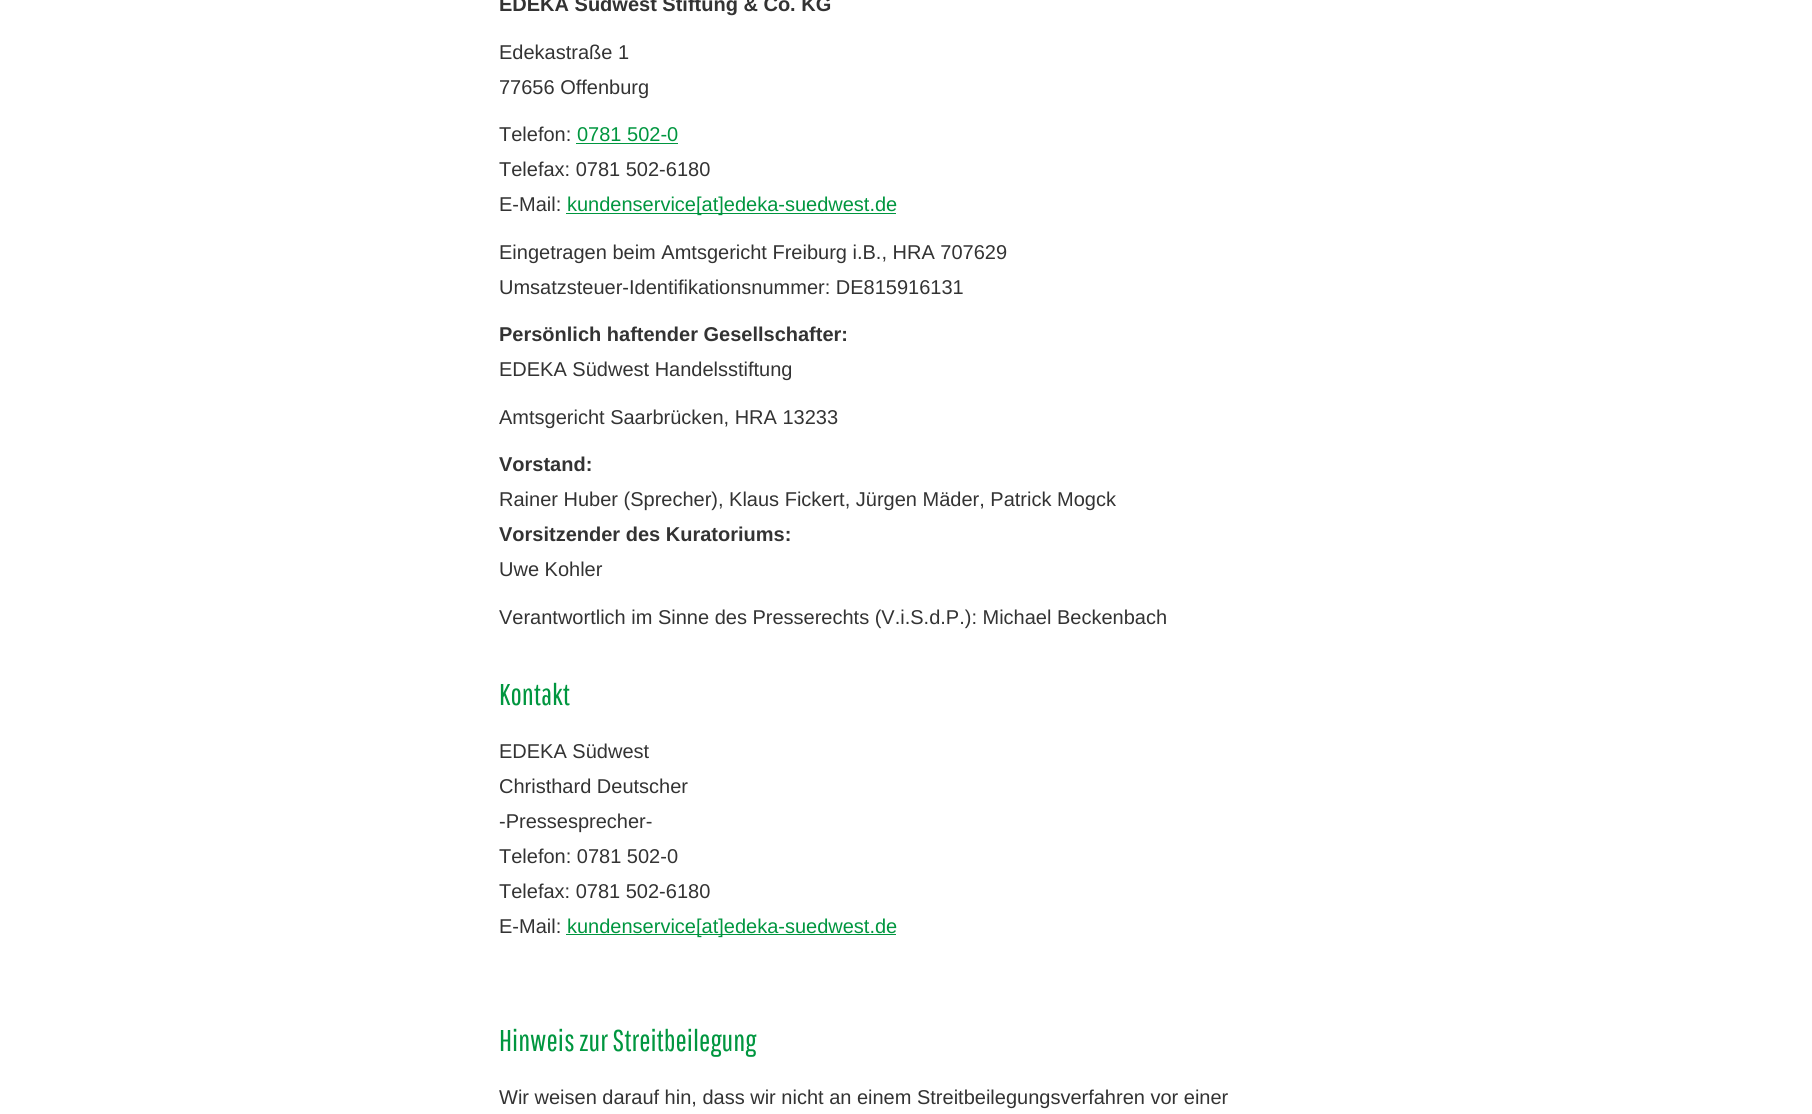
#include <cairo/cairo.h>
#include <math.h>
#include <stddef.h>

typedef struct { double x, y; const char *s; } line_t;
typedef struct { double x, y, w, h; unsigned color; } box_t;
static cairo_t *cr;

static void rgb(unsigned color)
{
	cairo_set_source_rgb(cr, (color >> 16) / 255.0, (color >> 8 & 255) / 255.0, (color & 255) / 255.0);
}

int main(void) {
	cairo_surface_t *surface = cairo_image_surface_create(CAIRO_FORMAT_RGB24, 1812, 1114);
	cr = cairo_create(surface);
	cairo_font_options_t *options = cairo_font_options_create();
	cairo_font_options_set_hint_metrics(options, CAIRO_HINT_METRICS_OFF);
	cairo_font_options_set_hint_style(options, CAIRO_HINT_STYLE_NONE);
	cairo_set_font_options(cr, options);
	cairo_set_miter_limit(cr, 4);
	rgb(0xffffff);
	cairo_paint(cr);
	{
		static const box_t items[] = {
			{576, 143, 102, 1, 0x00963f},
			{566, 213, 330, 1, 0x00963f},
			{566, 934, 330, 1, 0x00963f},
		};
		for (size_t i = 0; i < sizeof items / sizeof *items; i++) {
			rgb(items[i].color);
			cairo_rectangle(cr, items[i].x, items[i].y, items[i].w, items[i].h);
			cairo_fill(cr);
		}
	}
	cairo_select_font_face(cr, "Liberation Sans", CAIRO_FONT_SLANT_NORMAL, CAIRO_FONT_WEIGHT_BOLD);
	cairo_set_font_size(cr, 20);
	rgb(0x333333);
	cairo_move_to(cr, 499, 11);
	cairo_show_text(cr, "EDEKA Südwest Stiftung & Co. KG");
	cairo_select_font_face(cr, "Liberation Sans", CAIRO_FONT_SLANT_NORMAL, CAIRO_FONT_WEIGHT_NORMAL);
	{
		static const line_t items[] = {
			{499, 59, "Edekastraße 1"},
			{499, 94, "77656 Offenburg"},
			{499, 141, "Telefon:"},
		};
		for (size_t i = 0; i < sizeof items / sizeof *items; i++) {
			cairo_move_to(cr, items[i].x, items[i].y);
			cairo_show_text(cr, items[i].s);
		}
	}
	rgb(0x00963f);
	cairo_move_to(cr, 577, 141);
	cairo_show_text(cr, "0781 502-0");
	rgb(0x333333);
	cairo_move_to(cr, 499, 176);
	cairo_show_text(cr, "Telefax: 0781 502-6180");
	cairo_move_to(cr, 499, 211);
	cairo_show_text(cr, "E-Mail:");
	rgb(0x00963f);
	cairo_move_to(cr, 567, 211);
	cairo_show_text(cr, "kundenservice[at]edeka-suedwest.de");
	rgb(0x333333);
	cairo_move_to(cr, 499, 259);
	cairo_show_text(cr, "Eingetragen beim Amtsgericht Freiburg i.B., HRA 707629");
	cairo_move_to(cr, 499, 294);
	cairo_show_text(cr, "Umsatzsteuer-Identifikationsnummer: DE815916131");
	cairo_select_font_face(cr, "Liberation Sans", CAIRO_FONT_SLANT_NORMAL, CAIRO_FONT_WEIGHT_BOLD);
	cairo_move_to(cr, 499, 341);
	cairo_show_text(cr, "Persönlich haftender Gesellschafter:");
	cairo_select_font_face(cr, "Liberation Sans", CAIRO_FONT_SLANT_NORMAL, CAIRO_FONT_WEIGHT_NORMAL);
	cairo_move_to(cr, 499, 376);
	cairo_show_text(cr, "EDEKA Südwest Handelsstiftung");
	cairo_move_to(cr, 499, 424);
	cairo_show_text(cr, "Amtsgericht Saarbrücken, HRA 13233");
	cairo_select_font_face(cr, "Liberation Sans", CAIRO_FONT_SLANT_NORMAL, CAIRO_FONT_WEIGHT_BOLD);
	cairo_move_to(cr, 499, 471);
	cairo_show_text(cr, "Vorstand:");
	cairo_select_font_face(cr, "Liberation Sans", CAIRO_FONT_SLANT_NORMAL, CAIRO_FONT_WEIGHT_NORMAL);
	cairo_move_to(cr, 499, 506);
	cairo_show_text(cr, "Rainer Huber (Sprecher), Klaus Fickert, Jürgen Mäder, Patrick Mogck");
	cairo_select_font_face(cr, "Liberation Sans", CAIRO_FONT_SLANT_NORMAL, CAIRO_FONT_WEIGHT_BOLD);
	cairo_move_to(cr, 499, 541);
	cairo_show_text(cr, "Vorsitzender des Kuratoriums:");
	cairo_select_font_face(cr, "Liberation Sans", CAIRO_FONT_SLANT_NORMAL, CAIRO_FONT_WEIGHT_NORMAL);
	cairo_move_to(cr, 499, 576);
	cairo_show_text(cr, "Uwe Kohler");
	cairo_move_to(cr, 499, 624);
	cairo_show_text(cr, "Verantwortlich im Sinne des Presserechts (V.i.S.d.P.): Michael Beckenbach");
	cairo_select_font_face(cr, "Pathway Gothic One", CAIRO_FONT_SLANT_NORMAL, CAIRO_FONT_WEIGHT_NORMAL);
	cairo_set_font_size(cr, 30);
	rgb(0x00963f);
	cairo_move_to(cr, 499, 705);
	cairo_show_text(cr, "Kontakt");
	cairo_select_font_face(cr, "Liberation Sans", CAIRO_FONT_SLANT_NORMAL, CAIRO_FONT_WEIGHT_NORMAL);
	cairo_set_font_size(cr, 20);
	rgb(0x333333);
	{
		static const line_t items[] = {
			{499, 758, "EDEKA Südwest"},
			{499, 793, "Christhard Deutscher"},
			{499, 828, "-Pressesprecher-"},
			{499, 863, "Telefon: 0781 502-0"},
			{499, 898, "Telefax: 0781 502-6180"},
			{499, 933, "E-Mail:"},
		};
		for (size_t i = 0; i < sizeof items / sizeof *items; i++) {
			cairo_move_to(cr, items[i].x, items[i].y);
			cairo_show_text(cr, items[i].s);
		}
	}
	rgb(0x00963f);
	cairo_move_to(cr, 567, 933);
	cairo_show_text(cr, "kundenservice[at]edeka-suedwest.de");
	cairo_select_font_face(cr, "Pathway Gothic One", CAIRO_FONT_SLANT_NORMAL, CAIRO_FONT_WEIGHT_NORMAL);
	cairo_set_font_size(cr, 30);
	cairo_move_to(cr, 499, 1051);
	cairo_show_text(cr, "Hinweis zur Streitbeilegung");
	cairo_select_font_face(cr, "Liberation Sans", CAIRO_FONT_SLANT_NORMAL, CAIRO_FONT_WEIGHT_NORMAL);
	cairo_set_font_size(cr, 20);
	rgb(0x333333);
	cairo_move_to(cr, 499, 1104);
	cairo_show_text(cr, "Wir weisen darauf hin, dass wir nicht an einem Streitbeilegungsverfahren vor einer");
	cairo_surface_write_to_png(surface, "page.png");
	cairo_font_options_destroy(options);
	cairo_destroy(cr);
	cairo_surface_destroy(surface);
	return 0;
}
